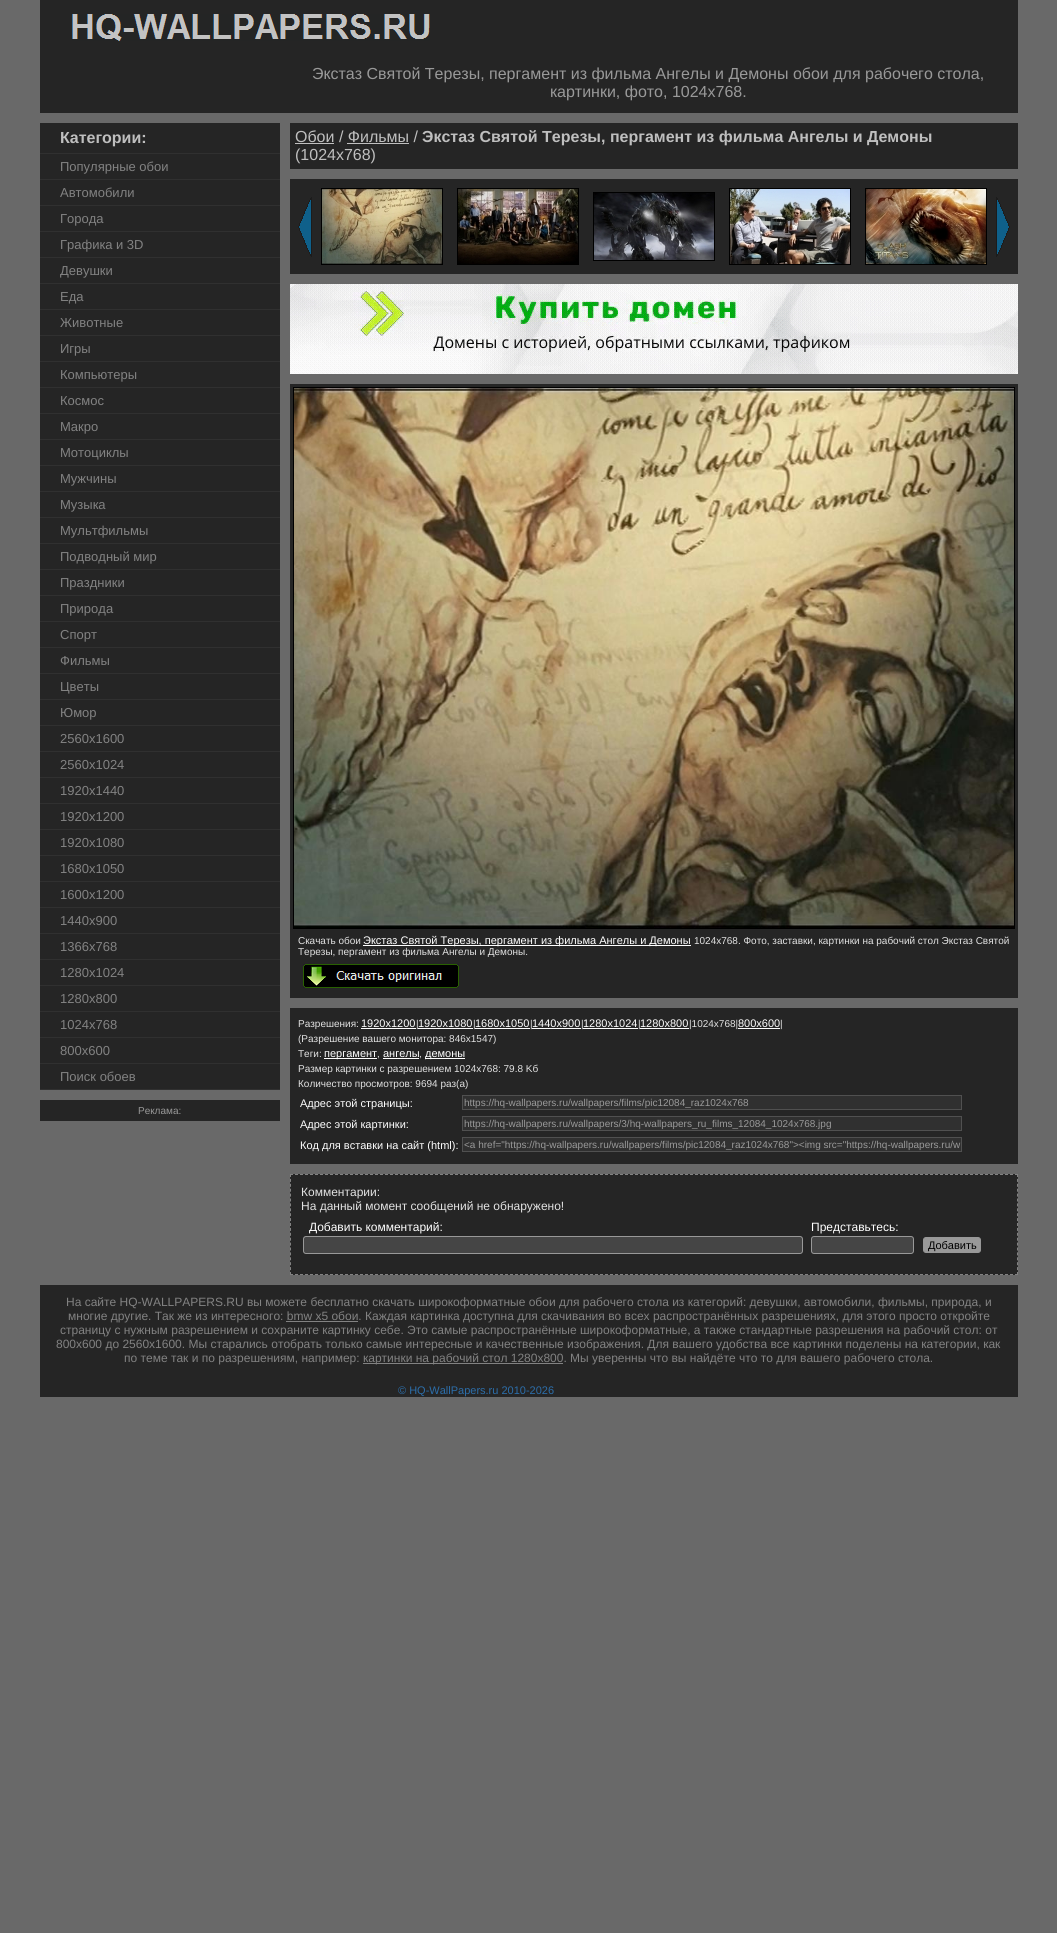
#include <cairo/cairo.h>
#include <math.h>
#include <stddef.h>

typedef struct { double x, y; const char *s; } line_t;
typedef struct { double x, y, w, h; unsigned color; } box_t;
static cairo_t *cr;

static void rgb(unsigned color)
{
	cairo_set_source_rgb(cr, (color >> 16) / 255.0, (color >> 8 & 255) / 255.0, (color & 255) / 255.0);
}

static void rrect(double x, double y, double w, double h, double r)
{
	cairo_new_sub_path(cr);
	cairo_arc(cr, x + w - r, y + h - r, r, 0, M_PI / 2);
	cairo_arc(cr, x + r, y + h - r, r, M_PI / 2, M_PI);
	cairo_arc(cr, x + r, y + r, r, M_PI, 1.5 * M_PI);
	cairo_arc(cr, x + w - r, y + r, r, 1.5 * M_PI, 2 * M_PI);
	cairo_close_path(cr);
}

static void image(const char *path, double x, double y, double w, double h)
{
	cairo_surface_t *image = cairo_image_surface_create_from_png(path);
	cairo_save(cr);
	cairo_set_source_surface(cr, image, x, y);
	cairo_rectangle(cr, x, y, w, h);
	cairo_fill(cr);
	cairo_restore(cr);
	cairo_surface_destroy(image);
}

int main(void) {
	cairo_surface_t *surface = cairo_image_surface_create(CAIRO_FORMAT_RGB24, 1057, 1933);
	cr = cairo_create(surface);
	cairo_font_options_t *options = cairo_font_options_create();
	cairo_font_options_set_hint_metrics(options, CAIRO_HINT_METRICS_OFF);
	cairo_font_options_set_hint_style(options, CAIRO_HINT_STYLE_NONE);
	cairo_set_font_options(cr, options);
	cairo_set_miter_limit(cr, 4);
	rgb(0x696969);
	cairo_paint(cr);
	rgb(0x252525);
	cairo_rectangle(cr, 40, 0, 978, 53);
	cairo_fill(cr);
	image("img/1.png", 72, 14, 358, 27);
	{
		static const box_t items[] = {
			{40, 53, 978, 60, 0x252525},
			{40, 123, 240, 30, 0x252525},
			{40, 153, 240, 1, 0x303030},
			{40, 154, 240, 25, 0x252525},
			{40, 179, 240, 1, 0x303030},
			{40, 180, 240, 25, 0x252525},
			{40, 205, 240, 1, 0x303030},
			{40, 206, 240, 25, 0x252525},
			{40, 231, 240, 1, 0x303030},
			{40, 232, 240, 25, 0x252525},
			{40, 257, 240, 1, 0x303030},
			{40, 258, 240, 25, 0x252525},
			{40, 283, 240, 1, 0x303030},
			{40, 284, 240, 25, 0x252525},
			{40, 309, 240, 1, 0x303030},
			{40, 310, 240, 25, 0x252525},
			{40, 335, 240, 1, 0x303030},
			{40, 336, 240, 25, 0x252525},
			{40, 361, 240, 1, 0x303030},
			{40, 362, 240, 25, 0x252525},
			{40, 387, 240, 1, 0x303030},
			{40, 388, 240, 25, 0x252525},
			{40, 413, 240, 1, 0x303030},
			{40, 414, 240, 25, 0x252525},
			{40, 439, 240, 1, 0x303030},
			{40, 440, 240, 25, 0x252525},
			{40, 465, 240, 1, 0x303030},
			{40, 466, 240, 25, 0x252525},
			{40, 491, 240, 1, 0x303030},
			{40, 492, 240, 25, 0x252525},
			{40, 517, 240, 1, 0x303030},
			{40, 518, 240, 25, 0x252525},
			{40, 543, 240, 1, 0x303030},
			{40, 544, 240, 25, 0x252525},
			{40, 569, 240, 1, 0x303030},
			{40, 570, 240, 25, 0x252525},
			{40, 595, 240, 1, 0x303030},
			{40, 596, 240, 25, 0x252525},
			{40, 621, 240, 1, 0x303030},
			{40, 622, 240, 25, 0x252525},
			{40, 647, 240, 1, 0x303030},
			{40, 648, 240, 25, 0x252525},
			{40, 673, 240, 1, 0x303030},
			{40, 674, 240, 25, 0x252525},
			{40, 699, 240, 1, 0x303030},
			{40, 700, 240, 25, 0x252525},
			{40, 725, 240, 1, 0x303030},
			{40, 726, 240, 25, 0x252525},
			{40, 751, 240, 1, 0x303030},
			{40, 752, 240, 25, 0x252525},
			{40, 777, 240, 1, 0x303030},
			{40, 778, 240, 25, 0x252525},
			{40, 803, 240, 1, 0x303030},
			{40, 804, 240, 25, 0x252525},
			{40, 829, 240, 1, 0x303030},
			{40, 830, 240, 25, 0x252525},
			{40, 855, 240, 1, 0x303030},
			{40, 856, 240, 25, 0x252525},
			{40, 881, 240, 1, 0x303030},
			{40, 882, 240, 25, 0x252525},
			{40, 907, 240, 1, 0x303030},
			{40, 908, 240, 25, 0x252525},
			{40, 933, 240, 1, 0x303030},
			{40, 934, 240, 25, 0x252525},
			{40, 959, 240, 1, 0x303030},
			{40, 960, 240, 25, 0x252525},
			{40, 985, 240, 1, 0x303030},
			{40, 986, 240, 25, 0x252525},
			{40, 1011, 240, 1, 0x303030},
			{40, 1012, 240, 25, 0x252525},
			{40, 1037, 240, 1, 0x303030},
			{40, 1038, 240, 25, 0x252525},
			{40, 1063, 240, 1, 0x303030},
			{40, 1064, 240, 25, 0x252525},
			{40, 1089, 240, 1, 0x303030},
			{40, 1100, 240, 21, 0x252525},
			{290, 123, 728, 46, 0x252525},
			{295, 143, 39, 1, 0xbfbfbf},
			{347, 143, 62, 1, 0xbfbfbf},
			{290, 179, 728, 95, 0x252525},
		};
		for (size_t i = 0; i < sizeof items / sizeof *items; i++) {
			rgb(items[i].color);
			cairo_rectangle(cr, items[i].x, items[i].y, items[i].w, items[i].h);
			cairo_fill(cr);
		}
	}
	image("img/2.png", 298, 197, 14, 60);
	cairo_rectangle(cr, 321.5, 188.5, 121, 76);
	rgb(0x000000);
	cairo_set_line_width(cr, 1);
	cairo_stroke(cr);
	cairo_rectangle(cr, 457.5, 188.5, 121, 76);
	cairo_stroke(cr);
	cairo_rectangle(cr, 729.5, 188.5, 121, 76);
	cairo_stroke(cr);
	cairo_rectangle(cr, 865.5, 188.5, 121, 76);
	cairo_stroke(cr);
	image("img/3.png", 322, 189, 120, 75);
	image("img/4.png", 458, 189, 120, 75);
	cairo_rectangle(cr, 593.5, 192.5, 121, 68);
	cairo_stroke(cr);
	image("img/5.png", 730, 189, 120, 75);
	image("img/6.png", 866, 189, 120, 75);
	image("img/7.png", 594, 193, 120, 67);
	image("img/8.png", 996, 197, 14, 60);
	image("img/9.png", 290, 284, 728, 90);
	rgb(0x252525);
	cairo_rectangle(cr, 290, 384, 728, 614);
	cairo_fill(cr);
	cairo_rectangle(cr, 293.5, 387.5, 721, 541);
	rgb(0x000000);
	cairo_stroke(cr);
	image("img/10.png", 294, 388, 720, 540);
	rgb(0xffffff);
	cairo_rectangle(cr, 363, 945, 328, 1);
	cairo_fill(cr);
	image("img/11.png", 303, 964, 156, 24);
	{
		static const box_t items[] = {
			{290, 1008, 728, 156, 0x252525},
			{361, 1028, 55, 1, 0xffffff},
			{418, 1028, 55, 1, 0xffffff},
			{475, 1028, 55, 1, 0xffffff},
			{532, 1028, 49, 1, 0xffffff},
			{583, 1028, 55, 1, 0xffffff},
			{640, 1028, 49, 1, 0xffffff},
			{738, 1028, 42, 1, 0xffffff},
			{324, 1058, 53, 1, 0xffffff},
			{383, 1058, 36, 1, 0xffffff},
			{425, 1058, 40, 1, 0xffffff},
		};
		for (size_t i = 0; i < sizeof items / sizeof *items; i++) {
			rgb(items[i].color);
			cairo_rectangle(cr, items[i].x, items[i].y, items[i].w, items[i].h);
			cairo_fill(cr);
		}
	}
	rgb(0x303030);
	cairo_rectangle(cr, 462.5, 1095.5, 499, 14);
	cairo_fill_preserve(cr);
	rgb(0x505050);
	cairo_stroke(cr);
	rgb(0x303030);
	cairo_rectangle(cr, 462.5, 1116.5, 499, 14);
	cairo_fill_preserve(cr);
	rgb(0x505050);
	cairo_stroke(cr);
	rgb(0x303030);
	cairo_rectangle(cr, 462.5, 1137.5, 499, 14);
	cairo_fill_preserve(cr);
	rgb(0x505050);
	cairo_stroke(cr);
	rgb(0x252525);
	cairo_rectangle(cr, 290, 1174, 728, 101);
	cairo_fill(cr);
	cairo_new_path(cr);
	cairo_move_to(cr, 290, 1174.5);
	cairo_line_to(cr, 1018, 1174.5);
	rgb(0x828282);
	cairo_set_dash(cr, (double[]){3, 2}, 2, 0);
	cairo_stroke(cr);
	cairo_new_path(cr);
	cairo_move_to(cr, 1017.5, 1174);
	cairo_line_to(cr, 1017.5, 1275);
	cairo_set_dash(cr, (double[]){3, 1.9}, 2, 0);
	cairo_stroke(cr);
	cairo_new_path(cr);
	cairo_move_to(cr, 290, 1274.5);
	cairo_line_to(cr, 1018, 1274.5);
	cairo_set_dash(cr, (double[]){3, 2}, 2, 0);
	cairo_stroke(cr);
	cairo_new_path(cr);
	cairo_move_to(cr, 290.5, 1174);
	cairo_line_to(cr, 290.5, 1275);
	cairo_set_dash(cr, (double[]){3, 1.9}, 2, 0);
	cairo_stroke(cr);
	rgb(0x454545);
	rrect(303.5, 1236.5, 499, 17, 2.5);
	cairo_fill_preserve(cr);
	rgb(0x989898);
	cairo_set_dash(cr, NULL, 0, 0);
	cairo_stroke(cr);
	rgb(0x454545);
	rrect(811.5, 1236.5, 102, 17, 2.5);
	cairo_fill_preserve(cr);
	rgb(0x989898);
	cairo_stroke(cr);
	rgb(0x999999);
	rrect(923.5, 1237.5, 57, 15, 2.5);
	cairo_fill_preserve(cr);
	rgb(0x989898);
	cairo_stroke(cr);
	{
		static const box_t items[] = {
			{40, 1285, 978, 112, 0x252525},
			{286, 1321, 72, 1, 0x828282},
			{363, 1363, 200, 1, 0x828282},
		};
		for (size_t i = 0; i < sizeof items / sizeof *items; i++) {
			rgb(items[i].color);
			cairo_rectangle(cr, items[i].x, items[i].y, items[i].w, items[i].h);
			cairo_fill(cr);
		}
	}
	cairo_select_font_face(cr, "Liberation Sans", CAIRO_FONT_SLANT_NORMAL, CAIRO_FONT_WEIGHT_NORMAL);
	cairo_set_font_size(cr, 16);
	rgb(0x999999);
	cairo_move_to(cr, 312, 79);
	cairo_show_text(cr, "Экстаз Святой Терезы, пергамент из фильма Ангелы и Демоны обои для рабочего стола,");
	cairo_move_to(cr, 550, 97);
	cairo_show_text(cr, "картинки, фото, 1024x768.");
	cairo_select_font_face(cr, "Liberation Sans", CAIRO_FONT_SLANT_NORMAL, CAIRO_FONT_WEIGHT_BOLD);
	rgb(0xbfbfbf);
	cairo_move_to(cr, 60, 143);
	cairo_show_text(cr, "Категории:");
	cairo_select_font_face(cr, "Liberation Sans", CAIRO_FONT_SLANT_NORMAL, CAIRO_FONT_WEIGHT_NORMAL);
	cairo_set_font_size(cr, 13);
	rgb(0x828282);
	{
		static const line_t items[] = {
			{60, 171, "Популярные обои"},
			{60, 197, "Автомобили"},
			{60, 223, "Города"},
			{60, 249, "Графика и 3D"},
			{60, 275, "Девушки"},
			{60, 301, "Еда"},
			{60, 327, "Животные"},
			{60, 353, "Игры"},
			{60, 379, "Компьютеры"},
			{60, 405, "Космос"},
			{60, 431, "Макро"},
			{60, 457, "Мотоциклы"},
			{60, 483, "Мужчины"},
			{60, 509, "Музыка"},
			{60, 535, "Мультфильмы"},
			{60, 561, "Подводный мир"},
			{60, 587, "Праздники"},
			{60, 613, "Природа"},
			{60, 639, "Спорт"},
			{60, 665, "Фильмы"},
			{60, 691, "Цветы"},
			{60, 717, "Юмор"},
			{60, 743, "2560x1600"},
			{60, 769, "2560x1024"},
			{60, 795, "1920x1440"},
			{60, 821, "1920x1200"},
			{60, 847, "1920x1080"},
			{60, 873, "1680x1050"},
			{60, 899, "1600x1200"},
			{60, 925, "1440x900"},
			{60, 951, "1366x768"},
			{60, 977, "1280x1024"},
			{60, 1003, "1280x800"},
			{60, 1029, "1024x768"},
			{60, 1055, "800x600"},
			{60, 1081, "Поиск обоев"},
		};
		for (size_t i = 0; i < sizeof items / sizeof *items; i++) {
			cairo_move_to(cr, items[i].x, items[i].y);
			cairo_show_text(cr, items[i].s);
		}
	}
	cairo_set_font_size(cr, 10);
	rgb(0x999999);
	cairo_move_to(cr, 138, 1114);
	cairo_show_text(cr, "Реклама:");
	cairo_set_font_size(cr, 16);
	rgb(0xbfbfbf);
	cairo_move_to(cr, 295, 142);
	cairo_show_text(cr, "Обои / Фильмы /");
	cairo_select_font_face(cr, "Liberation Sans", CAIRO_FONT_SLANT_NORMAL, CAIRO_FONT_WEIGHT_BOLD);
	cairo_move_to(cr, 422, 142);
	cairo_show_text(cr, "Экстаз Святой Терезы, пергамент из фильма Ангелы и Демоны");
	cairo_select_font_face(cr, "Liberation Sans", CAIRO_FONT_SLANT_NORMAL, CAIRO_FONT_WEIGHT_NORMAL);
	cairo_move_to(cr, 295, 160);
	cairo_show_text(cr, "(1024x768)");
	cairo_set_font_size(cr, 10);
	rgb(0xe2e2e2);
	cairo_move_to(cr, 298, 944);
	cairo_show_text(cr, "Скачать обои");
	cairo_set_font_size(cr, 11);
	rgb(0xffffff);
	cairo_move_to(cr, 363, 944);
	cairo_show_text(cr, "Экстаз Святой Терезы, пергамент из фильма Ангелы и Демоны");
	cairo_set_font_size(cr, 10);
	rgb(0xe2e2e2);
	{
		static const line_t items[] = {
			{694, 944, "1024x768. Фото, заставки, картинки на рабочий стол Экстаз Святой"},
			{298, 955, "Терезы, пергамент из фильма Ангелы и Демоны."},
			{298, 1027, "Разрешения:"},
		};
		for (size_t i = 0; i < sizeof items / sizeof *items; i++) {
			cairo_move_to(cr, items[i].x, items[i].y);
			cairo_show_text(cr, items[i].s);
		}
	}
	cairo_set_font_size(cr, 11);
	rgb(0xffffff);
	cairo_move_to(cr, 361, 1027);
	cairo_show_text(cr, "1920x1200");
	cairo_set_font_size(cr, 10);
	rgb(0xe2e2e2);
	cairo_move_to(cr, 416, 1027);
	cairo_show_text(cr, "|");
	cairo_set_font_size(cr, 11);
	rgb(0xffffff);
	cairo_move_to(cr, 418, 1027);
	cairo_show_text(cr, "1920x1080");
	cairo_set_font_size(cr, 10);
	rgb(0xe2e2e2);
	cairo_move_to(cr, 473, 1027);
	cairo_show_text(cr, "|");
	cairo_set_font_size(cr, 11);
	rgb(0xffffff);
	cairo_move_to(cr, 475, 1027);
	cairo_show_text(cr, "1680x1050");
	cairo_set_font_size(cr, 10);
	rgb(0xe2e2e2);
	cairo_move_to(cr, 530, 1027);
	cairo_show_text(cr, "|");
	cairo_set_font_size(cr, 11);
	rgb(0xffffff);
	cairo_move_to(cr, 532, 1027);
	cairo_show_text(cr, "1440x900");
	cairo_set_font_size(cr, 10);
	rgb(0xe2e2e2);
	cairo_move_to(cr, 581, 1027);
	cairo_show_text(cr, "|");
	cairo_set_font_size(cr, 11);
	rgb(0xffffff);
	cairo_move_to(cr, 583, 1027);
	cairo_show_text(cr, "1280x1024");
	cairo_set_font_size(cr, 10);
	rgb(0xe2e2e2);
	cairo_move_to(cr, 638, 1027);
	cairo_show_text(cr, "|");
	cairo_set_font_size(cr, 11);
	rgb(0xffffff);
	cairo_move_to(cr, 640, 1027);
	cairo_show_text(cr, "1280x800");
	cairo_set_font_size(cr, 10);
	rgb(0xe2e2e2);
	cairo_move_to(cr, 689, 1027);
	cairo_show_text(cr, "|1024x768|");
	cairo_set_font_size(cr, 11);
	rgb(0xffffff);
	cairo_move_to(cr, 738, 1027);
	cairo_show_text(cr, "800x600");
	cairo_set_font_size(cr, 10);
	rgb(0xe2e2e2);
	{
		static const line_t items[] = {
			{780, 1027, "|"},
			{298, 1042, "(Разрешение вашего монитора: 846x1547)"},
			{298, 1057, "Теги:"},
		};
		for (size_t i = 0; i < sizeof items / sizeof *items; i++) {
			cairo_move_to(cr, items[i].x, items[i].y);
			cairo_show_text(cr, items[i].s);
		}
	}
	cairo_set_font_size(cr, 11);
	rgb(0xffffff);
	cairo_move_to(cr, 324, 1057);
	cairo_show_text(cr, "пергамент");
	cairo_set_font_size(cr, 10);
	rgb(0xe2e2e2);
	cairo_move_to(cr, 377, 1057);
	cairo_show_text(cr, ",");
	cairo_set_font_size(cr, 11);
	rgb(0xffffff);
	cairo_move_to(cr, 383, 1057);
	cairo_show_text(cr, "ангелы");
	cairo_set_font_size(cr, 10);
	rgb(0xe2e2e2);
	cairo_move_to(cr, 419, 1057);
	cairo_show_text(cr, ",");
	cairo_set_font_size(cr, 11);
	rgb(0xffffff);
	cairo_move_to(cr, 425, 1057);
	cairo_show_text(cr, "демоны");
	cairo_set_font_size(cr, 10);
	rgb(0xe2e2e2);
	cairo_move_to(cr, 298, 1072);
	cairo_show_text(cr, "Размер картинки с разрешением 1024x768: 79.8 Kб");
	cairo_move_to(cr, 298, 1087);
	cairo_show_text(cr, "Количество просмотров: 9694 раз(а)");
	cairo_set_font_size(cr, 11);
	rgb(0xffffff);
	cairo_move_to(cr, 300, 1107);
	cairo_show_text(cr, "Адрес этой страницы:");
	cairo_set_font_size(cr, 10);
	rgb(0x999999);
	cairo_move_to(cr, 464, 1106);
	cairo_show_text(cr, "https://hq-wallpapers.ru/wallpapers/films/pic12084_raz1024x768");
	cairo_set_font_size(cr, 11);
	rgb(0xffffff);
	cairo_move_to(cr, 300, 1128);
	cairo_show_text(cr, "Адрес этой картинки:");
	cairo_set_font_size(cr, 10);
	rgb(0x999999);
	cairo_move_to(cr, 464, 1127);
	cairo_show_text(cr, "https://hq-wallpapers.ru/wallpapers/3/hq-wallpapers_ru_films_12084_1024x768.jpg");
	cairo_set_font_size(cr, 11);
	rgb(0xffffff);
	cairo_move_to(cr, 300, 1149);
	cairo_show_text(cr, "Код для вставки на сайт (html):");
	cairo_set_font_size(cr, 10);
	rgb(0x999999);
	cairo_move_to(cr, 464, 1148);
	cairo_show_text(cr, "<a href=\"https://hq-wallpapers.ru/wallpapers/films/pic12084_raz1024x768\"><img src=\"https://hq-wallpapers.ru/w");
	cairo_set_font_size(cr, 12);
	rgb(0xe2e2e2);
	cairo_move_to(cr, 301, 1196);
	cairo_show_text(cr, "Комментарии:");
	cairo_move_to(cr, 301, 1210);
	cairo_show_text(cr, "На данный момент сообщений не обнаружено!");
	rgb(0xffffff);
	cairo_move_to(cr, 309, 1231);
	cairo_show_text(cr, "Добавить комментарий:");
	cairo_move_to(cr, 811, 1231);
	cairo_show_text(cr, "Представьтесь:");
	cairo_set_font_size(cr, 11);
	rgb(0x000000);
	cairo_move_to(cr, 928, 1249);
	cairo_show_text(cr, "Добавить");
	cairo_set_font_size(cr, 12);
	rgb(0x828282);
	{
		static const line_t items[] = {
			{66, 1306, "На сайте HQ-WALLPAPERS.RU вы можете бесплатно скачать широкоформатные обои для рабочего стола из категорий: девушки, автомобили, фильмы, природа, и"},
			{68, 1320, "многие другие. Так же из интересного: bmw x5 обои. Каждая картинка доступна для скачивания во всех распространённых разрешениях, для этого просто откройте"},
			{60, 1334, "страницу с нужным разрешением и сохраните картинку себе. Это самые распространённые широкоформатные, а также стандартные разрешения на рабочий стол: от"},
			{56, 1348, "800x600 до 2560x1600. Мы старались отобрать только самые интересные и качественные изображения. Для вашего удобства все картинки поделены на категории, как"},
			{124, 1362, "по теме так и по разрешениям, например:"},
			{363, 1362, "картинки на рабочий стол 1280x800. Мы уверенны что вы найдёте что то для вашего рабочего стола."},
		};
		for (size_t i = 0; i < sizeof items / sizeof *items; i++) {
			cairo_move_to(cr, items[i].x, items[i].y);
			cairo_show_text(cr, items[i].s);
		}
	}
	cairo_set_font_size(cr, 11);
	rgb(0x2c6eaa);
	cairo_move_to(cr, 398, 1394);
	cairo_show_text(cr, "© HQ-WallPapers.ru 2010-2026");
	cairo_surface_write_to_png(surface, "page.png");
	cairo_font_options_destroy(options);
	cairo_destroy(cr);
	cairo_surface_destroy(surface);
	return 0;
}
